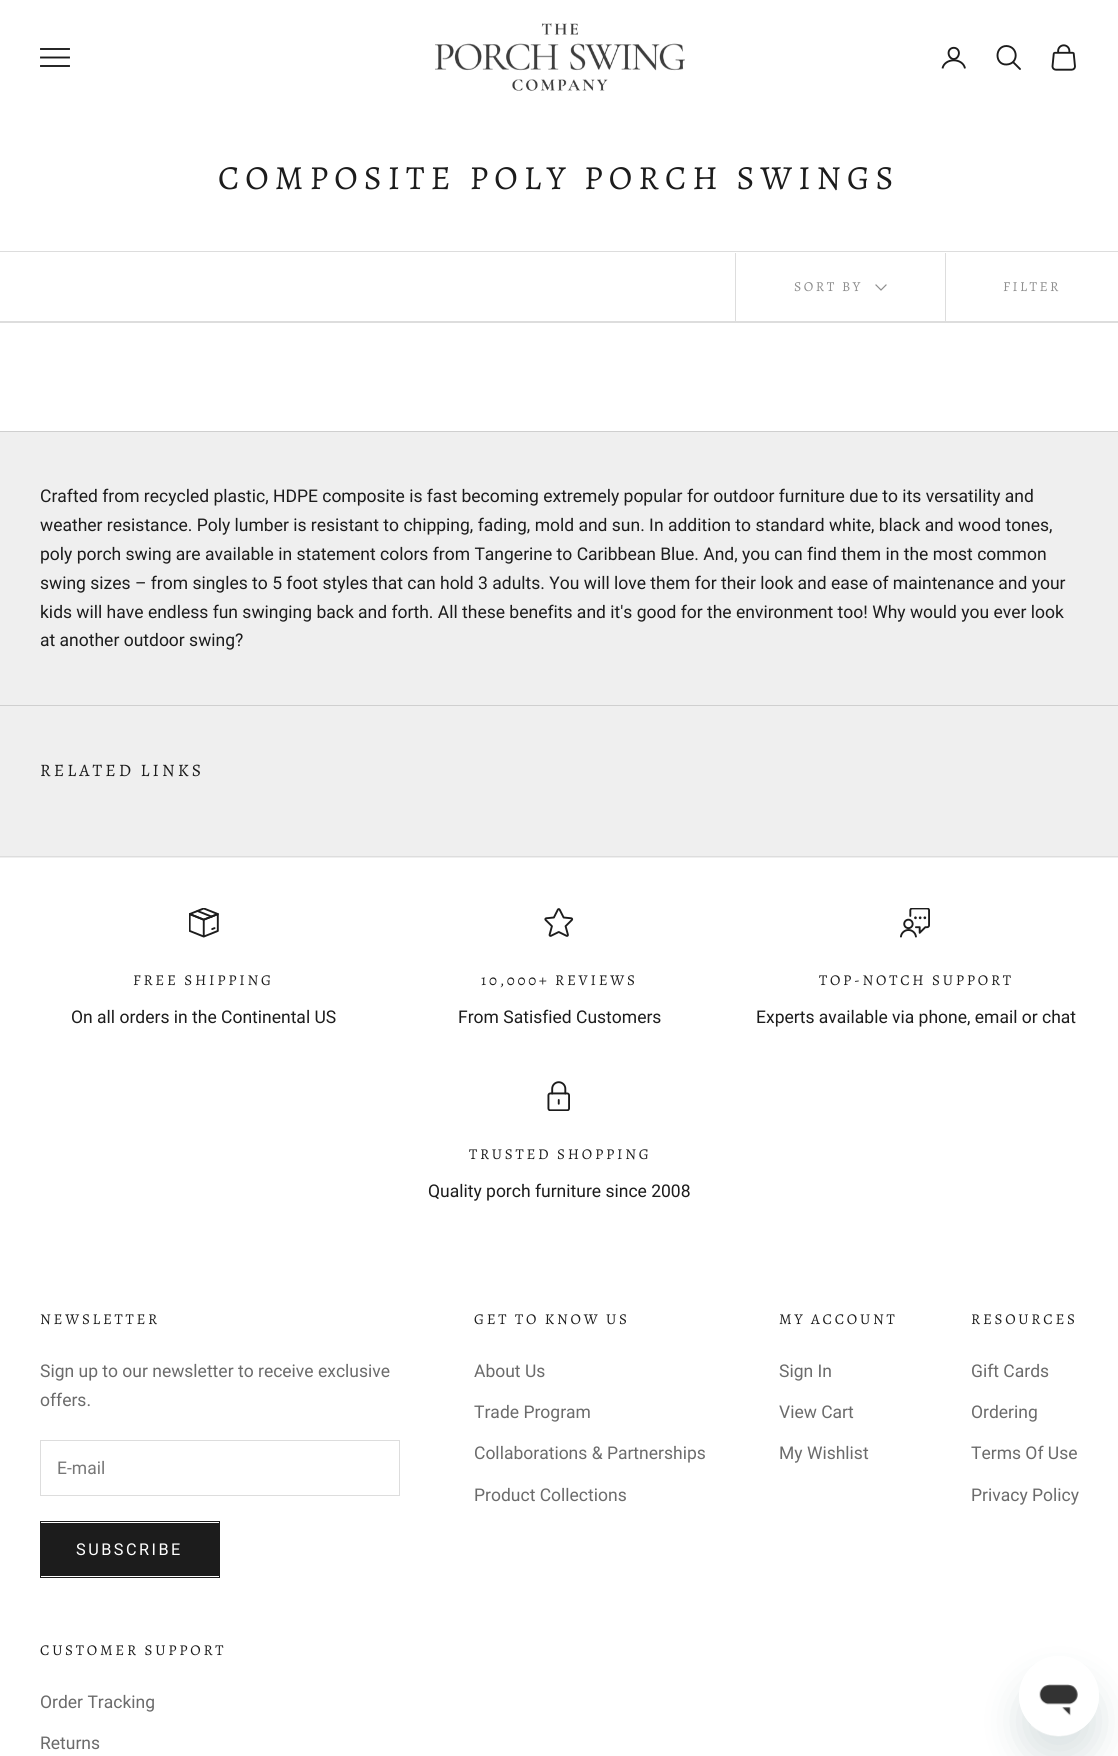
#include <cairo/cairo.h>
#include <math.h>
#include <stddef.h>

typedef struct { double x, y; const char *s; } line_t;
typedef struct { double x, y, w, h; unsigned color; } box_t;
static cairo_t *cr;

static void rgb(unsigned color)
{
	cairo_set_source_rgb(cr, (color >> 16) / 255.0, (color >> 8 & 255) / 255.0, (color & 255) / 255.0);
}

static void tracked(double x, double y, const char *s, double letter, double word)
{
	cairo_move_to(cr, x, y);
	while (*s) {
		char ch[5] = {0};
		int n = 0;
		do ch[n++] = *s++; while ((*s & 0xC0) == 0x80);
		cairo_show_text(cr, ch);
		cairo_rel_move_to(cr, letter + word * (*ch == ' '), 0);
	}
}

static void rrect(double x, double y, double w, double h, double r)
{
	cairo_new_sub_path(cr);
	cairo_arc(cr, x + w - r, y + h - r, r, 0, M_PI / 2);
	cairo_arc(cr, x + r, y + h - r, r, M_PI / 2, M_PI);
	cairo_arc(cr, x + r, y + r, r, M_PI, 1.5 * M_PI);
	cairo_arc(cr, x + w - r, y + r, r, 1.5 * M_PI, 2 * M_PI);
	cairo_close_path(cr);
}

static void soft_shadow(double x, double y, double w, double h, double r, double blur, double alpha)
{
	cairo_push_group_with_content(cr, CAIRO_CONTENT_ALPHA);
	cairo_set_operator(cr, CAIRO_OPERATOR_SOURCE);
	for (int i = 15; i >= -15 && fmin(w, h) + blur * i / 3 > 0; i -= 2) {
		double e = blur * i / 6;
		cairo_set_source_rgba(cr, 0, 0, 0, alpha * erfc((i - 1) / 8.5) / 2);
		rrect(x - e, y - e, w + 2 * e, h + 2 * e, fmax(0, fmin(r + e + blur * .6, fmin(w, h) / 2 + e)));
		cairo_fill(cr);
	}
	cairo_pattern_t *soft = cairo_pop_group(cr);
	cairo_mask(cr, soft);
	cairo_pattern_destroy(soft);
}

static void image(const char *path, double x, double y, double w, double h)
{
	cairo_surface_t *image = cairo_image_surface_create_from_png(path);
	cairo_save(cr);
	cairo_set_source_surface(cr, image, x, y);
	cairo_rectangle(cr, x, y, w, h);
	cairo_fill(cr);
	cairo_restore(cr);
	cairo_surface_destroy(image);
}

int main(void) {
	cairo_surface_t *surface = cairo_image_surface_create(CAIRO_FORMAT_RGB24, 1118, 1756);
	cr = cairo_create(surface);
	cairo_font_options_t *options = cairo_font_options_create();
	cairo_font_options_set_hint_metrics(options, CAIRO_HINT_METRICS_OFF);
	cairo_font_options_set_hint_style(options, CAIRO_HINT_STYLE_NONE);
	cairo_set_font_options(cr, options);
	cairo_set_miter_limit(cr, 4);
	rgb(0xefefef);
	cairo_paint(cr);
	rgb(0xffffff);
	cairo_rectangle(cr, 0, 0, 1118, 431);
	cairo_fill(cr);
	cairo_new_path(cr);
	cairo_move_to(cr, 41, 66);
	cairo_line_to(cr, 69, 66);
	cairo_move_to(cr, 41, 57.5);
	cairo_line_to(cr, 69, 57.5);
	cairo_move_to(cr, 41, 49);
	cairo_line_to(cr, 69, 49);
	rgb(0x1c1c1c);
	cairo_set_line_width(cr, 1.9);
	cairo_set_line_cap(cr, CAIRO_LINE_CAP_SQUARE);
	cairo_stroke(cr);
	image("img/1.png", 435, 23, 250, 68);
	image("img/2.png", 941, 46, 25, 23);
	cairo_new_path(cr);
	cairo_move_to(cr, 1006.5, 46);
	cairo_curve_to(cr, 994.5, 46, 994.5, 65, 1006.5, 64.5);
	cairo_curve_to(cr, 1019, 64, 1018.5, 46.5, 1006.5, 46);
	cairo_close_path(cr);
	cairo_set_line_cap(cr, CAIRO_LINE_CAP_BUTT);
	cairo_stroke(cr);
	cairo_new_path(cr);
	cairo_move_to(cr, 1013.5, 62.5);
	cairo_line_to(cr, 1020, 69);
	cairo_set_line_cap(cr, CAIRO_LINE_CAP_ROUND);
	cairo_stroke(cr);
	image("img/3.png", 1051, 44, 25, 27);
	rgb(0xdddddd);
	cairo_new_path(cr);
	cairo_move_to(cr, 0, 251);
	cairo_line_to(cr, 0, 252);
	cairo_line_to(cr, 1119, 252);
	cairo_line_to(cr, 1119, 320);
	cairo_line_to(cr, 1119, 251);
	cairo_close_path(cr);
	cairo_fill(cr);
	cairo_new_path(cr);
	cairo_move_to(cr, 0, 321);
	cairo_line_to(cr, 0, 323);
	cairo_line_to(cr, 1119, 323);
	cairo_line_to(cr, 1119, 254);
	cairo_line_to(cr, 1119, 321);
	cairo_close_path(cr);
	cairo_fill(cr);
	cairo_rectangle(cr, 735, 253, 1, 68);
	cairo_fill(cr);
	cairo_new_path(cr);
	cairo_move_to(cr, 876, 285);
	cairo_line_to(cr, 881, 290);
	cairo_line_to(cr, 886, 285);
	rgb(0x8e8e8e);
	cairo_set_line_width(cr, 1.2);
	cairo_set_line_cap(cr, CAIRO_LINE_CAP_SQUARE);
	cairo_stroke(cr);
	{
		static const box_t items[] = {
			{945, 253, 1, 68, 0xdddddd},
			{0, 431, 1118, 1, 0xcfcfcf},
			{0, 705, 1118, 1, 0xcfcfcf},
			{0, 858, 1118, 898, 0xffffff},
			{0, 856, 1118, 1, 0xdddddd},
		};
		for (size_t i = 0; i < sizeof items / sizeof *items; i++) {
			rgb(items[i].color);
			cairo_rectangle(cr, items[i].x, items[i].y, items[i].w, items[i].h);
			cairo_fill(cr);
		}
	}
	image("img/4.png", 189, 908, 30, 30);
	image("img/5.png", 544, 908, 30, 29);
	image("img/6.png", 900, 908, 30, 30);
	image("img/7.png", 547, 1081, 23, 30);
	cairo_rectangle(cr, 40.5, 1440.5, 359, 55);
	cairo_set_line_width(cr, 1);
	cairo_set_line_cap(cr, CAIRO_LINE_CAP_BUTT);
	cairo_stroke(cr);
	rgb(0x1c1c1c);
	cairo_rectangle(cr, 41, 1523, 178, 53);
	cairo_fill(cr);
	cairo_rectangle(cr, 40.5, 1521.5, 179, 56);
	cairo_stroke(cr);
	cairo_save(cr);
	cairo_set_fill_rule(cr, CAIRO_FILL_RULE_EVEN_ODD);
	cairo_new_path(cr);
	cairo_move_to(cr, 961, 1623);
	cairo_line_to(cr, 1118, 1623);
	cairo_line_to(cr, 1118, 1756);
	cairo_line_to(cr, 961, 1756);
	cairo_close_path(cr);
	cairo_move_to(cr, 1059, 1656);
	cairo_curve_to(cr, 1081, 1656, 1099, 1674, 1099, 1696);
	cairo_curve_to(cr, 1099, 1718, 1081, 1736, 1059, 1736);
	cairo_curve_to(cr, 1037, 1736, 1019, 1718, 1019, 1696);
	cairo_curve_to(cr, 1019, 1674, 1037, 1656, 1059, 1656);
	cairo_close_path(cr);
	cairo_clip(cr);
	rgb(0x17494d);
	soft_shadow(1019, 1681, 80, 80, 40, 19, 0.15);
	cairo_restore(cr);
	image("img/8.png", 1031, 1684, 47, 53);
	cairo_select_font_face(cr, "Alegreya", CAIRO_FONT_SLANT_NORMAL, CAIRO_FONT_WEIGHT_NORMAL);
	cairo_set_font_size(cr, 33.8);
	tracked(218, 189, "COMPOSITE POLY PORCH SWINGS", 6.1, 0);
	cairo_set_font_size(cr, 13.75);
	rgb(0x8e8e8e);
	tracked(794, 291, "SORT BY", 2.5, 0);
	tracked(1003, 291, "FILTER", 2.5, 0);
	cairo_select_font_face(cr, "Roboto", CAIRO_FONT_SLANT_NORMAL, CAIRO_FONT_WEIGHT_NORMAL);
	cairo_set_font_size(cr, 17.5);
	rgb(0x1c1c1c);
	{
		static const line_t items[] = {
			{40, 502, "Crafted from recycled plastic, HDPE composite is fast becoming extremely popular for outdoor furniture due to its versatility and"},
			{40, 531, "weather resistance. Poly lumber is resistant to chipping, fading, mold and sun. In addition to standard white, black and wood tones,"},
			{40, 560, "poly porch swing are available in statement colors from Tangerine to Caribbean Blue. And, you can find them in the most common"},
			{40, 589, "swing sizes – from singles to 5 foot styles that can hold 3 adults. You will love them for their look and ease of maintenance and your"},
			{40, 618, "kids will have endless fun swinging back and forth. All these benefits and it's good for the environment too! Why would you ever look"},
			{40, 646, "at another outdoor swing?"},
		};
		for (size_t i = 0; i < sizeof items / sizeof *items; i++) {
			cairo_move_to(cr, items[i].x, items[i].y);
			cairo_show_text(cr, items[i].s);
		}
	}
	cairo_select_font_face(cr, "Alegreya", CAIRO_FONT_SLANT_NORMAL, CAIRO_FONT_WEIGHT_NORMAL);
	tracked(40, 776, "RELATED LINKS", 3.1, 0);
	cairo_set_font_size(cr, 15);
	tracked(133, 985, "FREE SHIPPING", 2.75, 0);
	cairo_select_font_face(cr, "Roboto", CAIRO_FONT_SLANT_NORMAL, CAIRO_FONT_WEIGHT_NORMAL);
	cairo_set_font_size(cr, 17.5);
	cairo_move_to(cr, 71, 1023);
	cairo_show_text(cr, "On all orders in the Continental US");
	cairo_select_font_face(cr, "Alegreya", CAIRO_FONT_SLANT_NORMAL, CAIRO_FONT_WEIGHT_NORMAL);
	cairo_set_font_size(cr, 15);
	tracked(481, 985, "10,000+ REVIEWS", 2.75, 0);
	cairo_select_font_face(cr, "Roboto", CAIRO_FONT_SLANT_NORMAL, CAIRO_FONT_WEIGHT_NORMAL);
	cairo_set_font_size(cr, 17.5);
	cairo_move_to(cr, 458, 1023);
	cairo_show_text(cr, "From Satisfied Customers");
	cairo_select_font_face(cr, "Alegreya", CAIRO_FONT_SLANT_NORMAL, CAIRO_FONT_WEIGHT_NORMAL);
	cairo_set_font_size(cr, 15);
	tracked(819, 985, "TOP-NOTCH SUPPORT", 2.75, 0);
	cairo_select_font_face(cr, "Roboto", CAIRO_FONT_SLANT_NORMAL, CAIRO_FONT_WEIGHT_NORMAL);
	cairo_set_font_size(cr, 17.5);
	cairo_move_to(cr, 756, 1023);
	cairo_show_text(cr, "Experts available via phone, email or chat");
	cairo_select_font_face(cr, "Alegreya", CAIRO_FONT_SLANT_NORMAL, CAIRO_FONT_WEIGHT_NORMAL);
	cairo_set_font_size(cr, 15);
	tracked(469, 1159, "TRUSTED SHOPPING", 2.75, 0);
	cairo_select_font_face(cr, "Roboto", CAIRO_FONT_SLANT_NORMAL, CAIRO_FONT_WEIGHT_NORMAL);
	cairo_set_font_size(cr, 17.5);
	cairo_move_to(cr, 428, 1197);
	cairo_show_text(cr, "Quality porch furniture since 2008");
	cairo_select_font_face(cr, "Alegreya", CAIRO_FONT_SLANT_NORMAL, CAIRO_FONT_WEIGHT_NORMAL);
	cairo_set_font_size(cr, 15);
	tracked(40, 1324, "NEWSLETTER", 2.75, 0);
	cairo_select_font_face(cr, "Roboto", CAIRO_FONT_SLANT_NORMAL, CAIRO_FONT_WEIGHT_NORMAL);
	cairo_set_font_size(cr, 17.5);
	rgb(0x6b6b6b);
	cairo_move_to(cr, 40, 1377);
	cairo_show_text(cr, "Sign up to our newsletter to receive exclusive");
	cairo_move_to(cr, 40, 1406);
	cairo_show_text(cr, "offers.");
	rgb(0x777777);
	cairo_move_to(cr, 57, 1474);
	cairo_show_text(cr, "E-mail");
	cairo_set_font_size(cr, 16.25);
	rgb(0xffffff);
	tracked(76, 1555, "SUBSCRIBE", 2.5, 0);
	cairo_select_font_face(cr, "Alegreya", CAIRO_FONT_SLANT_NORMAL, CAIRO_FONT_WEIGHT_NORMAL);
	cairo_set_font_size(cr, 15);
	rgb(0x1c1c1c);
	tracked(474, 1324, "GET TO KNOW US", 2.75, 0);
	cairo_select_font_face(cr, "Roboto", CAIRO_FONT_SLANT_NORMAL, CAIRO_FONT_WEIGHT_NORMAL);
	cairo_set_font_size(cr, 17.5);
	rgb(0x6b6b6b);
	{
		static const line_t items[] = {
			{474, 1377, "About Us"},
			{474, 1418, "Trade Program"},
			{474, 1459, "Collaborations & Partnerships"},
			{474, 1501, "Product Collections"},
		};
		for (size_t i = 0; i < sizeof items / sizeof *items; i++) {
			cairo_move_to(cr, items[i].x, items[i].y);
			cairo_show_text(cr, items[i].s);
		}
	}
	cairo_select_font_face(cr, "Alegreya", CAIRO_FONT_SLANT_NORMAL, CAIRO_FONT_WEIGHT_NORMAL);
	cairo_set_font_size(cr, 15);
	rgb(0x1c1c1c);
	tracked(779, 1324, "MY ACCOUNT", 2.75, 0);
	cairo_select_font_face(cr, "Roboto", CAIRO_FONT_SLANT_NORMAL, CAIRO_FONT_WEIGHT_NORMAL);
	cairo_set_font_size(cr, 17.5);
	rgb(0x6b6b6b);
	{
		static const line_t items[] = {
			{779, 1377, "Sign In"},
			{779, 1418, "View Cart"},
			{779, 1459, "My Wishlist"},
		};
		for (size_t i = 0; i < sizeof items / sizeof *items; i++) {
			cairo_move_to(cr, items[i].x, items[i].y);
			cairo_show_text(cr, items[i].s);
		}
	}
	cairo_select_font_face(cr, "Alegreya", CAIRO_FONT_SLANT_NORMAL, CAIRO_FONT_WEIGHT_NORMAL);
	cairo_set_font_size(cr, 15);
	rgb(0x1c1c1c);
	tracked(971, 1324, "RESOURCES", 2.75, 0);
	cairo_select_font_face(cr, "Roboto", CAIRO_FONT_SLANT_NORMAL, CAIRO_FONT_WEIGHT_NORMAL);
	cairo_set_font_size(cr, 17.5);
	rgb(0x6b6b6b);
	{
		static const line_t items[] = {
			{971, 1377, "Gift Cards"},
			{971, 1418, "Ordering"},
			{971, 1459, "Terms Of Use"},
			{971, 1501, "Privacy Policy"},
		};
		for (size_t i = 0; i < sizeof items / sizeof *items; i++) {
			cairo_move_to(cr, items[i].x, items[i].y);
			cairo_show_text(cr, items[i].s);
		}
	}
	cairo_select_font_face(cr, "Alegreya", CAIRO_FONT_SLANT_NORMAL, CAIRO_FONT_WEIGHT_NORMAL);
	cairo_set_font_size(cr, 15);
	rgb(0x1c1c1c);
	tracked(40, 1655, "CUSTOMER SUPPORT", 2.75, 0);
	cairo_select_font_face(cr, "Roboto", CAIRO_FONT_SLANT_NORMAL, CAIRO_FONT_WEIGHT_NORMAL);
	cairo_set_font_size(cr, 17.5);
	rgb(0x6b6b6b);
	cairo_move_to(cr, 40, 1708);
	cairo_show_text(cr, "Order Tracking");
	cairo_move_to(cr, 40, 1749);
	cairo_show_text(cr, "Returns");
	cairo_surface_write_to_png(surface, "page.png");
	cairo_font_options_destroy(options);
	cairo_destroy(cr);
	cairo_surface_destroy(surface);
	return 0;
}
